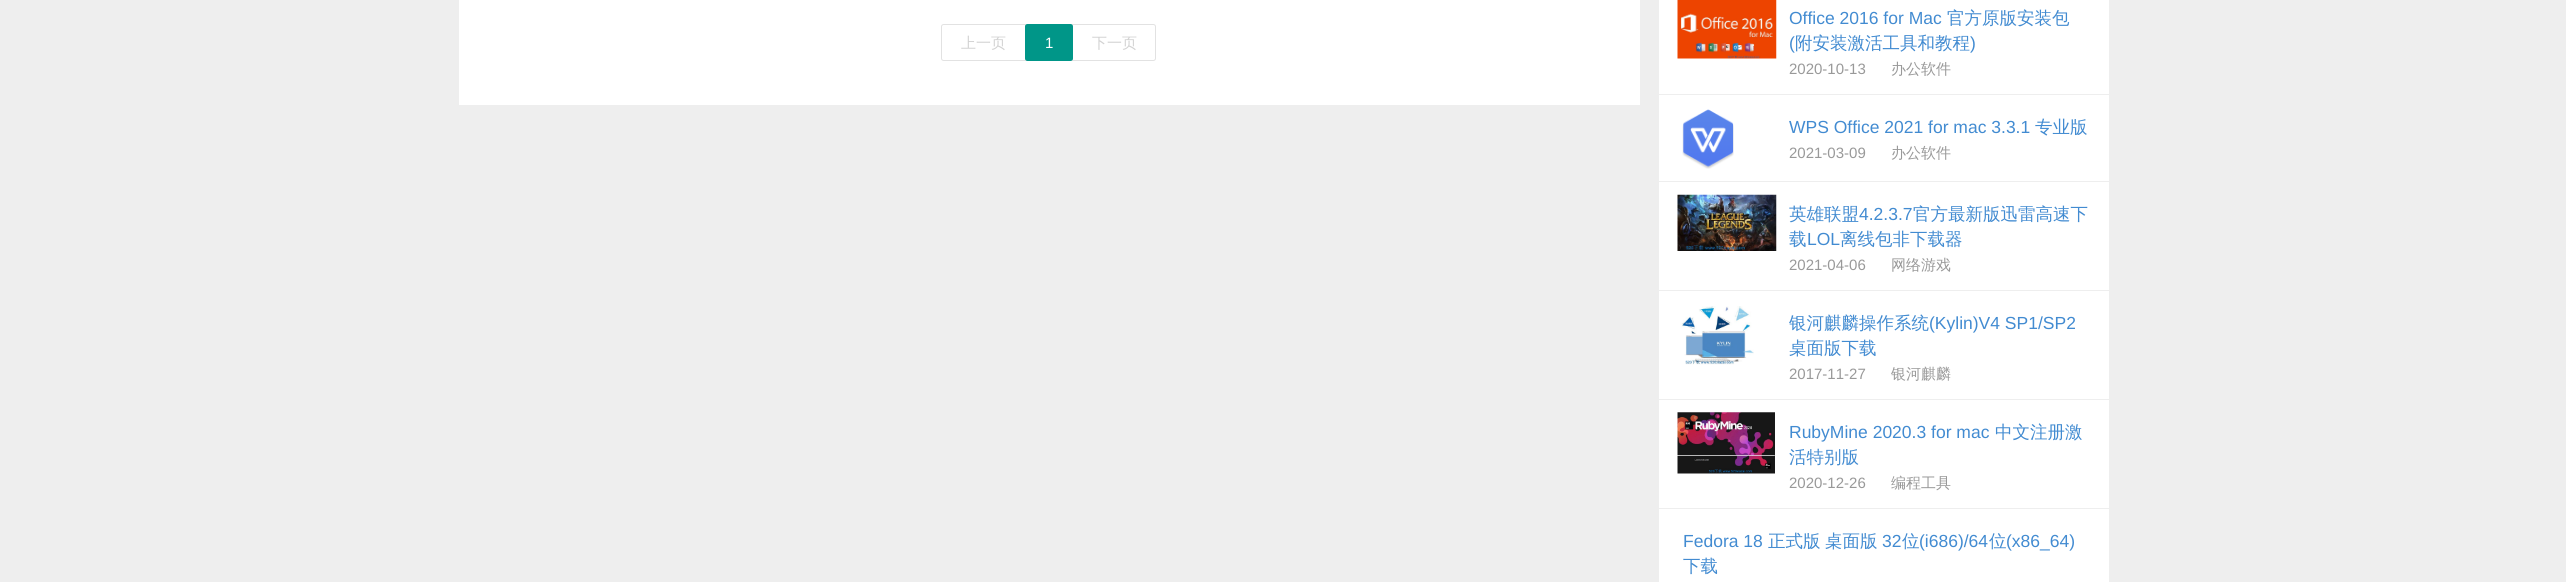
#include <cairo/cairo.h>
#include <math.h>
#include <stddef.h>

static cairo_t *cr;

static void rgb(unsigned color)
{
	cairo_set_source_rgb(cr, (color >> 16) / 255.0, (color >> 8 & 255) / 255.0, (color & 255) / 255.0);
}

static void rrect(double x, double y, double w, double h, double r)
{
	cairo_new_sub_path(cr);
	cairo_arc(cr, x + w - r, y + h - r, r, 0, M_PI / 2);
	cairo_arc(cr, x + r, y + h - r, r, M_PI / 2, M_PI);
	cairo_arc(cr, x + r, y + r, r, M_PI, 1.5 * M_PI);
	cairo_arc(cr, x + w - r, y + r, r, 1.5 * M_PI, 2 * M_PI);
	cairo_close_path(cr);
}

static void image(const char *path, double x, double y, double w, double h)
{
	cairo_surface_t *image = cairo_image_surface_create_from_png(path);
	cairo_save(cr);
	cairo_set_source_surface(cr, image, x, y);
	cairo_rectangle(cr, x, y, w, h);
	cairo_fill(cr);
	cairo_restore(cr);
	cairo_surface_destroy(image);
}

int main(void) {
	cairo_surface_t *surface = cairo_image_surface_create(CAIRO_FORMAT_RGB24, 2566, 582);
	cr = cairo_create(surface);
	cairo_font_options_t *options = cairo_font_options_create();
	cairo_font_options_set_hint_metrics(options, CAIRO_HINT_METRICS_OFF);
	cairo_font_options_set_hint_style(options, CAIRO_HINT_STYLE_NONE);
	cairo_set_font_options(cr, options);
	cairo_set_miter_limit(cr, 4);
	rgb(0xeeeeee);
	cairo_paint(cr);
	rgb(0xffffff);
	cairo_rectangle(cr, 459, 0, 1181, 105);
	cairo_fill(cr);
	cairo_new_path(cr);
	cairo_move_to(cr, 943.5, 24.5);
	cairo_line_to(cr, 1025.5, 24.5);
	cairo_line_to(cr, 1025.5, 60.5);
	cairo_line_to(cr, 943.5, 60.5);
	cairo_curve_to(cr, 942.5, 60.5, 941.5, 59.5, 941.5, 58.5);
	cairo_line_to(cr, 941.5, 26.5);
	cairo_curve_to(cr, 941.5, 25.5, 942.5, 24.5, 943.5, 24.5);
	cairo_close_path(cr);
	rgb(0xe2e2e2);
	cairo_set_line_width(cr, 1);
	cairo_stroke(cr);
	cairo_new_path(cr);
	cairo_move_to(cr, 1071.5, 24.5);
	cairo_line_to(cr, 1153.5, 24.5);
	cairo_curve_to(cr, 1154.5, 24.5, 1155.5, 25.5, 1155.5, 26.5);
	cairo_line_to(cr, 1155.5, 58.5);
	cairo_curve_to(cr, 1155.5, 59.5, 1154.5, 60.5, 1153.5, 60.5);
	cairo_line_to(cr, 1071.5, 60.5);
	cairo_close_path(cr);
	cairo_stroke(cr);
	cairo_rectangle(cr, 1025.5, 24.5, 47, 36);
	cairo_stroke(cr);
	rgb(0x009688);
	rrect(1025, 24, 48, 37, 2.5);
	cairo_fill(cr);
	rgb(0xffffff);
	cairo_rectangle(cr, 1659, 0, 450, 582);
	cairo_fill(cr);
	rgb(0xeeeeee);
	cairo_new_path(cr);
	cairo_move_to(cr, 2109, 95);
	cairo_line_to(cr, 1655, 95);
	cairo_line_to(cr, 1659, 94);
	cairo_line_to(cr, 2109, 94);
	cairo_close_path(cr);
	cairo_fill(cr);
	image("img/1.png", 1677, 0, 100, 59);
	cairo_new_path(cr);
	cairo_move_to(cr, 2109, 182);
	cairo_line_to(cr, 1655, 182);
	cairo_line_to(cr, 1659, 181);
	cairo_line_to(cr, 2109, 181);
	cairo_close_path(cr);
	cairo_fill(cr);
	image("img/2.png", 1682, 109, 52, 60);
	cairo_new_path(cr);
	cairo_move_to(cr, 2109, 291);
	cairo_line_to(cr, 1655, 291);
	cairo_line_to(cr, 1659, 290);
	cairo_line_to(cr, 2109, 290);
	cairo_close_path(cr);
	cairo_fill(cr);
	image("img/3.png", 1677, 194, 100, 57);
	cairo_new_path(cr);
	cairo_move_to(cr, 2109, 400);
	cairo_line_to(cr, 1655, 400);
	cairo_line_to(cr, 1659, 399);
	cairo_line_to(cr, 2109, 399);
	cairo_close_path(cr);
	cairo_fill(cr);
	image("img/4.png", 1680, 306, 74, 59);
	cairo_new_path(cr);
	cairo_move_to(cr, 2109, 509);
	cairo_line_to(cr, 1655, 509);
	cairo_line_to(cr, 1659, 508);
	cairo_line_to(cr, 2109, 508);
	cairo_close_path(cr);
	cairo_fill(cr);
	image("img/5.png", 1677, 412, 98, 62);
	cairo_select_font_face(cr, "WenQuanYi Zen Hei Medium", CAIRO_FONT_SLANT_NORMAL, CAIRO_FONT_WEIGHT_NORMAL);
	cairo_set_font_size(cr, 15);
	rgb(0xd2d2d2);
	cairo_move_to(cr, 961, 48);
	cairo_show_text(cr, "上一页");
	cairo_select_font_face(cr, "Liberation Sans", CAIRO_FONT_SLANT_NORMAL, CAIRO_FONT_WEIGHT_NORMAL);
	rgb(0xffffff);
	cairo_move_to(cr, 1045, 48);
	cairo_show_text(cr, "1");
	cairo_select_font_face(cr, "WenQuanYi Zen Hei Medium", CAIRO_FONT_SLANT_NORMAL, CAIRO_FONT_WEIGHT_NORMAL);
	rgb(0xd2d2d2);
	cairo_move_to(cr, 1092, 48);
	cairo_show_text(cr, "下一页");
	cairo_select_font_face(cr, "Liberation Sans", CAIRO_FONT_SLANT_NORMAL, CAIRO_FONT_WEIGHT_NORMAL);
	cairo_set_font_size(cr, 17.5);
	rgb(0x428bd1);
	cairo_move_to(cr, 1789, 24);
	cairo_show_text(cr, "Office 2016 for Mac");
	cairo_select_font_face(cr, "WenQuanYi Zen Hei Medium", CAIRO_FONT_SLANT_NORMAL, CAIRO_FONT_WEIGHT_NORMAL);
	cairo_move_to(cr, 1947, 24);
	cairo_show_text(cr, "官方原版安装包");
	cairo_select_font_face(cr, "Liberation Sans", CAIRO_FONT_SLANT_NORMAL, CAIRO_FONT_WEIGHT_NORMAL);
	cairo_move_to(cr, 1789, 49);
	cairo_show_text(cr, "(");
	cairo_select_font_face(cr, "WenQuanYi Zen Hei Medium", CAIRO_FONT_SLANT_NORMAL, CAIRO_FONT_WEIGHT_NORMAL);
	cairo_move_to(cr, 1795, 49);
	cairo_show_text(cr, "附安装激活工具和教程");
	cairo_select_font_face(cr, "Liberation Sans", CAIRO_FONT_SLANT_NORMAL, CAIRO_FONT_WEIGHT_NORMAL);
	cairo_move_to(cr, 1970, 49);
	cairo_show_text(cr, ")");
	cairo_set_font_size(cr, 15);
	rgb(0x999999);
	cairo_move_to(cr, 1789, 74);
	cairo_show_text(cr, "2020-10-13");
	cairo_select_font_face(cr, "WenQuanYi Zen Hei Medium", CAIRO_FONT_SLANT_NORMAL, CAIRO_FONT_WEIGHT_NORMAL);
	cairo_move_to(cr, 1891, 74);
	cairo_show_text(cr, "办公软件");
	cairo_select_font_face(cr, "Liberation Sans", CAIRO_FONT_SLANT_NORMAL, CAIRO_FONT_WEIGHT_NORMAL);
	cairo_set_font_size(cr, 17.5);
	rgb(0x428bd1);
	cairo_move_to(cr, 1789, 133);
	cairo_show_text(cr, "WPS Office 2021 for mac 3.3.1");
	cairo_select_font_face(cr, "WenQuanYi Zen Hei Medium", CAIRO_FONT_SLANT_NORMAL, CAIRO_FONT_WEIGHT_NORMAL);
	cairo_move_to(cr, 2035, 133);
	cairo_show_text(cr, "专业版");
	cairo_select_font_face(cr, "Liberation Sans", CAIRO_FONT_SLANT_NORMAL, CAIRO_FONT_WEIGHT_NORMAL);
	cairo_set_font_size(cr, 15);
	rgb(0x999999);
	cairo_move_to(cr, 1789, 158);
	cairo_show_text(cr, "2021-03-09");
	cairo_select_font_face(cr, "WenQuanYi Zen Hei Medium", CAIRO_FONT_SLANT_NORMAL, CAIRO_FONT_WEIGHT_NORMAL);
	cairo_move_to(cr, 1891, 158);
	cairo_show_text(cr, "办公软件");
	cairo_set_font_size(cr, 17.5);
	rgb(0x428bd1);
	cairo_move_to(cr, 1789, 220);
	cairo_show_text(cr, "英雄联盟");
	cairo_select_font_face(cr, "Liberation Sans", CAIRO_FONT_SLANT_NORMAL, CAIRO_FONT_WEIGHT_NORMAL);
	cairo_move_to(cr, 1859, 220);
	cairo_show_text(cr, "4.2.3.7");
	cairo_select_font_face(cr, "WenQuanYi Zen Hei Medium", CAIRO_FONT_SLANT_NORMAL, CAIRO_FONT_WEIGHT_NORMAL);
	cairo_move_to(cr, 1913, 220);
	cairo_show_text(cr, "官方最新版迅雷高速下");
	cairo_move_to(cr, 1789, 245);
	cairo_show_text(cr, "载");
	cairo_select_font_face(cr, "Liberation Sans", CAIRO_FONT_SLANT_NORMAL, CAIRO_FONT_WEIGHT_NORMAL);
	cairo_move_to(cr, 1807, 245);
	cairo_show_text(cr, "LOL");
	cairo_select_font_face(cr, "WenQuanYi Zen Hei Medium", CAIRO_FONT_SLANT_NORMAL, CAIRO_FONT_WEIGHT_NORMAL);
	cairo_move_to(cr, 1840, 245);
	cairo_show_text(cr, "离线包非下载器");
	cairo_select_font_face(cr, "Liberation Sans", CAIRO_FONT_SLANT_NORMAL, CAIRO_FONT_WEIGHT_NORMAL);
	cairo_set_font_size(cr, 15);
	rgb(0x999999);
	cairo_move_to(cr, 1789, 270);
	cairo_show_text(cr, "2021-04-06");
	cairo_select_font_face(cr, "WenQuanYi Zen Hei Medium", CAIRO_FONT_SLANT_NORMAL, CAIRO_FONT_WEIGHT_NORMAL);
	cairo_move_to(cr, 1891, 270);
	cairo_show_text(cr, "网络游戏");
	cairo_set_font_size(cr, 17.5);
	rgb(0x428bd1);
	cairo_move_to(cr, 1789, 329);
	cairo_show_text(cr, "银河麒麟操作系统");
	cairo_select_font_face(cr, "Liberation Sans", CAIRO_FONT_SLANT_NORMAL, CAIRO_FONT_WEIGHT_NORMAL);
	cairo_move_to(cr, 1929, 329);
	cairo_show_text(cr, "(Kylin)V4 SP1/SP2");
	cairo_select_font_face(cr, "WenQuanYi Zen Hei Medium", CAIRO_FONT_SLANT_NORMAL, CAIRO_FONT_WEIGHT_NORMAL);
	cairo_move_to(cr, 1789, 354);
	cairo_show_text(cr, "桌面版下载");
	cairo_select_font_face(cr, "Liberation Sans", CAIRO_FONT_SLANT_NORMAL, CAIRO_FONT_WEIGHT_NORMAL);
	cairo_set_font_size(cr, 15);
	rgb(0x999999);
	cairo_move_to(cr, 1789, 379);
	cairo_show_text(cr, "2017-11-27");
	cairo_select_font_face(cr, "WenQuanYi Zen Hei Medium", CAIRO_FONT_SLANT_NORMAL, CAIRO_FONT_WEIGHT_NORMAL);
	cairo_move_to(cr, 1891, 379);
	cairo_show_text(cr, "银河麒麟");
	cairo_select_font_face(cr, "Liberation Sans", CAIRO_FONT_SLANT_NORMAL, CAIRO_FONT_WEIGHT_NORMAL);
	cairo_set_font_size(cr, 17.5);
	rgb(0x428bd1);
	cairo_move_to(cr, 1789, 438);
	cairo_show_text(cr, "RubyMine 2020.3 for mac");
	cairo_select_font_face(cr, "WenQuanYi Zen Hei Medium", CAIRO_FONT_SLANT_NORMAL, CAIRO_FONT_WEIGHT_NORMAL);
	cairo_move_to(cr, 1995, 438);
	cairo_show_text(cr, "中文注册激");
	cairo_move_to(cr, 1789, 463);
	cairo_show_text(cr, "活特别版");
	cairo_select_font_face(cr, "Liberation Sans", CAIRO_FONT_SLANT_NORMAL, CAIRO_FONT_WEIGHT_NORMAL);
	cairo_set_font_size(cr, 15);
	rgb(0x999999);
	cairo_move_to(cr, 1789, 488);
	cairo_show_text(cr, "2020-12-26");
	cairo_select_font_face(cr, "WenQuanYi Zen Hei Medium", CAIRO_FONT_SLANT_NORMAL, CAIRO_FONT_WEIGHT_NORMAL);
	cairo_move_to(cr, 1891, 488);
	cairo_show_text(cr, "编程工具");
	cairo_select_font_face(cr, "Liberation Sans", CAIRO_FONT_SLANT_NORMAL, CAIRO_FONT_WEIGHT_NORMAL);
	cairo_set_font_size(cr, 17.5);
	rgb(0x428bd1);
	cairo_move_to(cr, 1683, 547);
	cairo_show_text(cr, "Fedora 18");
	cairo_select_font_face(cr, "WenQuanYi Zen Hei Medium", CAIRO_FONT_SLANT_NORMAL, CAIRO_FONT_WEIGHT_NORMAL);
	cairo_move_to(cr, 1768, 547);
	cairo_show_text(cr, "正式版");
	cairo_move_to(cr, 1825, 547);
	cairo_show_text(cr, "桌面版");
	cairo_select_font_face(cr, "Liberation Sans", CAIRO_FONT_SLANT_NORMAL, CAIRO_FONT_WEIGHT_NORMAL);
	cairo_move_to(cr, 1882, 547);
	cairo_show_text(cr, "32");
	cairo_select_font_face(cr, "WenQuanYi Zen Hei Medium", CAIRO_FONT_SLANT_NORMAL, CAIRO_FONT_WEIGHT_NORMAL);
	cairo_move_to(cr, 1902, 547);
	cairo_show_text(cr, "位");
	cairo_select_font_face(cr, "Liberation Sans", CAIRO_FONT_SLANT_NORMAL, CAIRO_FONT_WEIGHT_NORMAL);
	cairo_move_to(cr, 1919, 547);
	cairo_show_text(cr, "(i686)/64");
	cairo_select_font_face(cr, "WenQuanYi Zen Hei Medium", CAIRO_FONT_SLANT_NORMAL, CAIRO_FONT_WEIGHT_NORMAL);
	cairo_move_to(cr, 1989, 547);
	cairo_show_text(cr, "位");
	cairo_select_font_face(cr, "Liberation Sans", CAIRO_FONT_SLANT_NORMAL, CAIRO_FONT_WEIGHT_NORMAL);
	cairo_move_to(cr, 2006, 547);
	cairo_show_text(cr, "(x86_64)");
	cairo_select_font_face(cr, "WenQuanYi Zen Hei Medium", CAIRO_FONT_SLANT_NORMAL, CAIRO_FONT_WEIGHT_NORMAL);
	cairo_move_to(cr, 1683, 572);
	cairo_show_text(cr, "下载");
	cairo_surface_write_to_png(surface, "page.png");
	cairo_font_options_destroy(options);
	cairo_destroy(cr);
	cairo_surface_destroy(surface);
	return 0;
}
